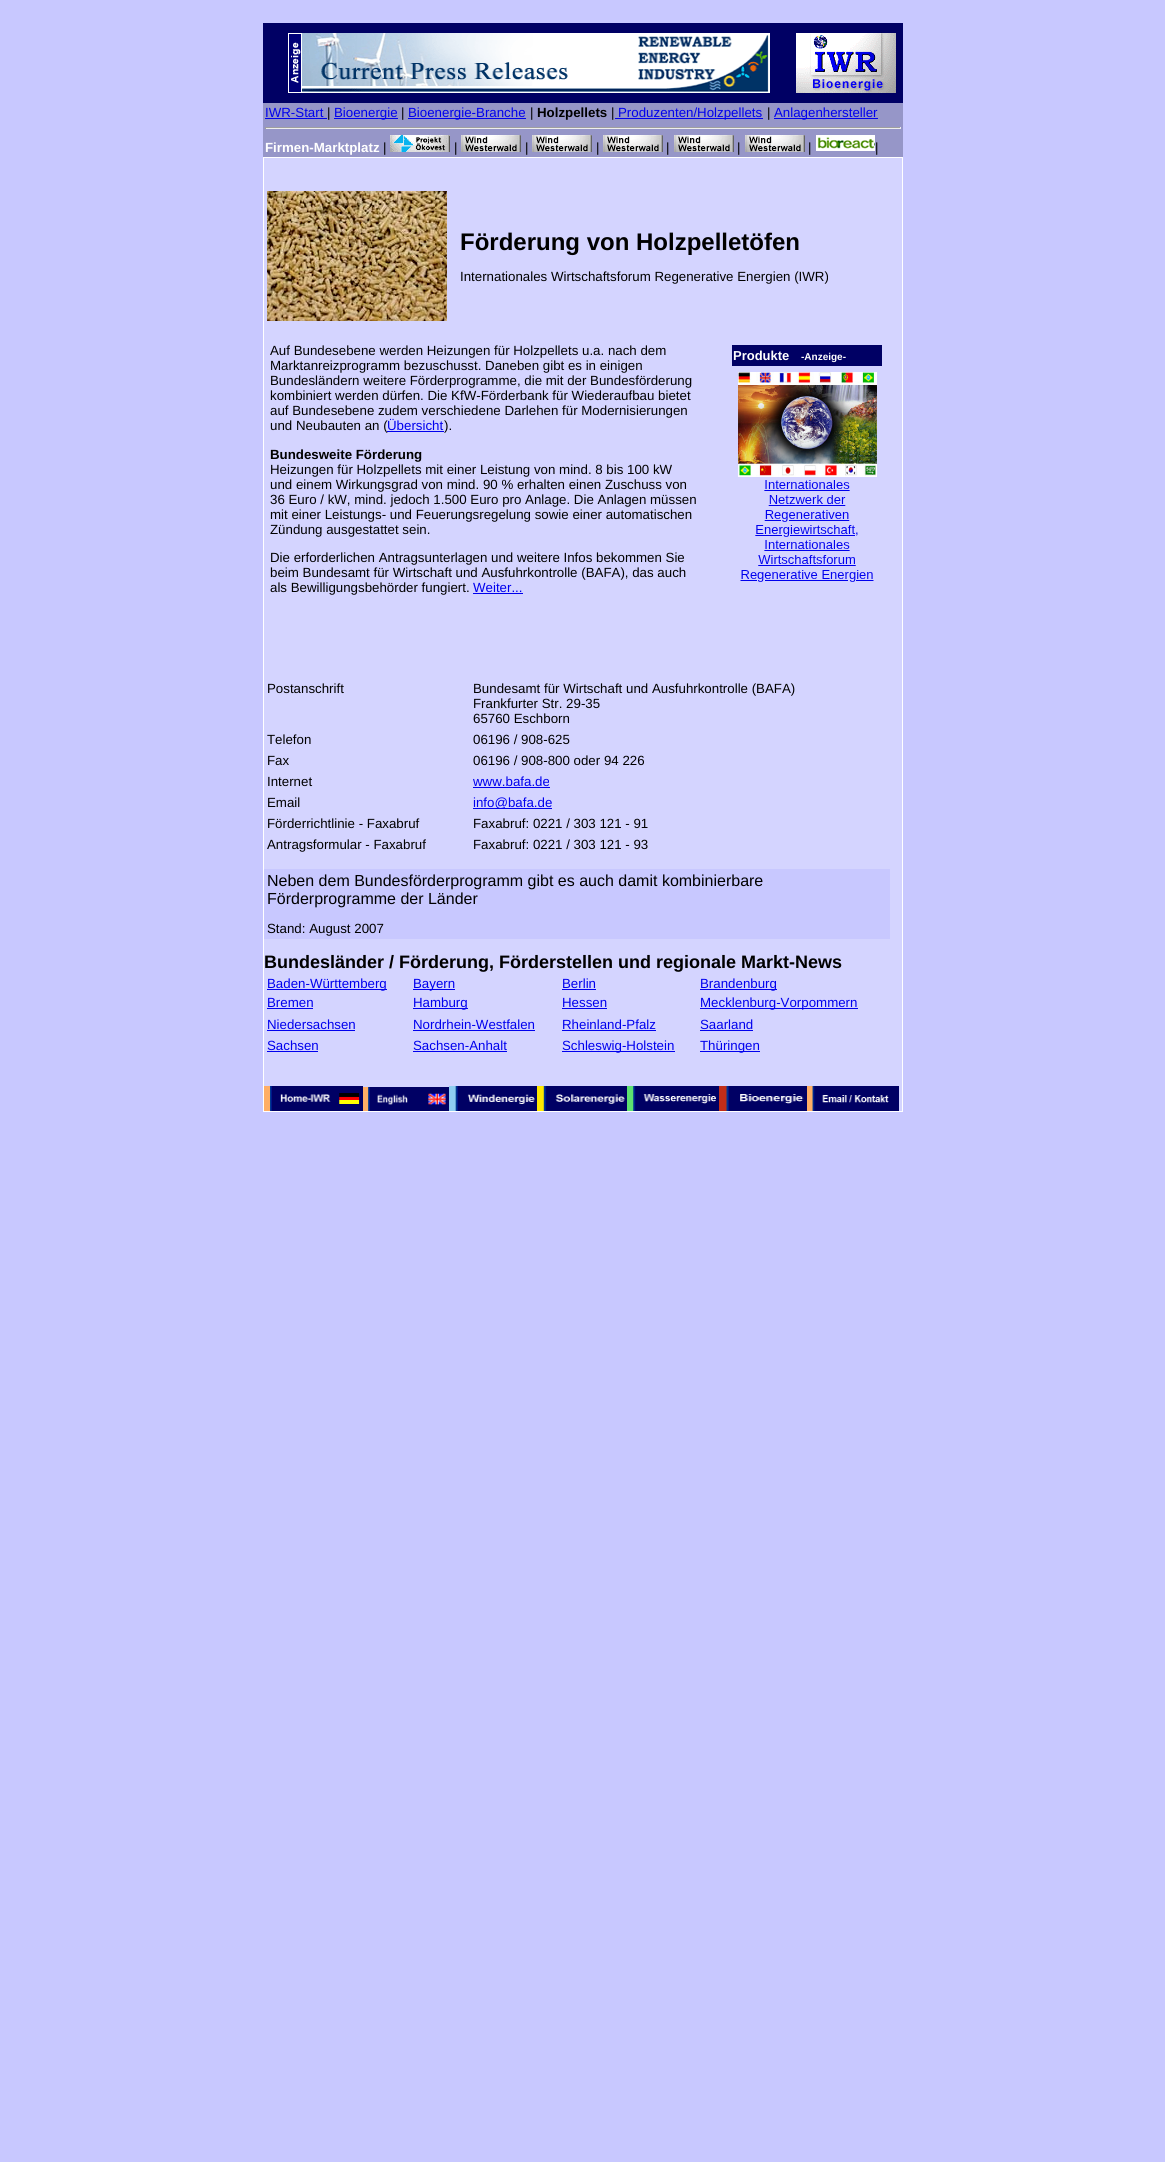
#include <cairo/cairo.h>
#include <math.h>
#include <stddef.h>

typedef struct { double x, y; const char *s; } line_t;
typedef struct { double x, y, w, h; unsigned color; } box_t;
static cairo_t *cr;

static void rgb(unsigned color)
{
	cairo_set_source_rgb(cr, (color >> 16) / 255.0, (color >> 8 & 255) / 255.0, (color & 255) / 255.0);
}

static void image(const char *path, double x, double y, double w, double h)
{
	cairo_surface_t *image = cairo_image_surface_create_from_png(path);
	cairo_save(cr);
	cairo_set_source_surface(cr, image, x, y);
	cairo_rectangle(cr, x, y, w, h);
	cairo_fill(cr);
	cairo_restore(cr);
	cairo_surface_destroy(image);
}

int main(void) {
	cairo_surface_t *surface = cairo_image_surface_create(CAIRO_FORMAT_RGB24, 1165, 2162);
	cr = cairo_create(surface);
	cairo_font_options_t *options = cairo_font_options_create();
	cairo_font_options_set_hint_metrics(options, CAIRO_HINT_METRICS_OFF);
	cairo_font_options_set_hint_style(options, CAIRO_HINT_STYLE_NONE);
	cairo_set_font_options(cr, options);
	cairo_set_miter_limit(cr, 4);
	rgb(0xc8c8ff);
	cairo_paint(cr);
	rgb(0x000064);
	cairo_rectangle(cr, 263, 23, 640, 80);
	cairo_fill(cr);
	image("img/1.png", 288, 33, 14, 60);
	image("img/2.png", 302, 33, 468, 60);
	image("img/3.png", 796, 32, 100, 61);
	{
		static const box_t items[] = {
			{263, 103, 640, 54, 0x9696c8},
			{265, 118, 62, 1, 0x0000ee},
			{334, 118, 64, 1, 0x0000ee},
			{408, 118, 118, 1, 0x0000ee},
			{615, 118, 148, 1, 0x0000ee},
			{774, 118, 104, 1, 0x0000ee},
			{265, 127, 636, 1, 0x9f9f9f},
			{900, 127, 1, 2, 0xeeeeee},
			{265, 128, 636, 1, 0xeeeeee},
			{265, 127, 1, 2, 0x9f9f9f},
		};
		for (size_t i = 0; i < sizeof items / sizeof *items; i++) {
			rgb(items[i].color);
			cairo_rectangle(cr, items[i].x, items[i].y, items[i].w, items[i].h);
			cairo_fill(cr);
		}
	}
	image("img/4.png", 390, 135, 60, 17);
	image("img/5.png", 461, 135, 60, 17);
	image("img/5.png", 532, 135, 60, 17);
	image("img/5.png", 603, 135, 60, 17);
	image("img/5.png", 674, 135, 60, 17);
	image("img/5.png", 745, 135, 60, 17);
	image("img/6.png", 816, 135, 59, 16);
	rgb(0xd4d4ff);
	cairo_rectangle(cr, 263.5, 157.5, 639, 954);
	cairo_fill_preserve(cr);
	rgb(0xffffff);
	cairo_set_line_width(cr, 1);
	cairo_stroke(cr);
	image("img/7.png", 267, 191, 180, 130);
	rgb(0x0000ee);
	cairo_rectangle(cr, 473, 593, 50, 1);
	cairo_fill(cr);
	rgb(0x000064);
	cairo_rectangle(cr, 732, 345, 150, 21);
	cairo_fill(cr);
	image("img/8.png", 738, 372, 139, 210);
	{
		static const box_t items[] = {
			{473, 787, 77, 1, 0x0000ee},
			{473, 808, 79, 1, 0x0000ee},
			{264, 869, 626, 70, 0xc8c8ff},
			{267, 989, 120, 1, 0x0000ee},
			{413, 989, 42, 1, 0x0000ee},
			{562, 989, 34, 1, 0x0000ee},
			{700, 989, 77, 1, 0x0000ee},
			{267, 1008, 46, 1, 0x0000ee},
			{413, 1008, 55, 1, 0x0000ee},
			{562, 1008, 45, 1, 0x0000ee},
			{700, 1008, 158, 1, 0x0000ee},
			{267, 1030, 88, 1, 0x0000ee},
			{413, 1030, 122, 1, 0x0000ee},
			{562, 1030, 94, 1, 0x0000ee},
			{700, 1030, 53, 1, 0x0000ee},
			{267, 1051, 51, 1, 0x0000ee},
			{413, 1051, 94, 1, 0x0000ee},
			{562, 1051, 113, 1, 0x0000ee},
			{700, 1051, 60, 1, 0x0000ee},
		};
		for (size_t i = 0; i < sizeof items / sizeof *items; i++) {
			rgb(items[i].color);
			cairo_rectangle(cr, items[i].x, items[i].y, items[i].w, items[i].h);
			cairo_fill(cr);
		}
	}
	image("img/9.png", 264, 1086, 99, 25);
	image("img/10.png", 363, 1087, 86, 24);
	image("img/11.png", 449, 1086, 88, 25);
	image("img/12.png", 537, 1086, 90, 25);
	image("img/13.png", 627, 1086, 92, 25);
	image("img/14.png", 719, 1086, 88, 25);
	image("img/15.png", 807, 1086, 92, 25);
	cairo_select_font_face(cr, "Liberation Sans", CAIRO_FONT_SLANT_NORMAL, CAIRO_FONT_WEIGHT_NORMAL);
	cairo_set_font_size(cr, 13.3);
	cairo_move_to(cr, 265, 117);
	cairo_show_text(cr, "IWR-Start");
	rgb(0x000000);
	cairo_move_to(cr, 327, 117);
	cairo_show_text(cr, "|");
	rgb(0x0000ee);
	cairo_move_to(cr, 334, 117);
	cairo_show_text(cr, "Bioenergie");
	rgb(0x000000);
	cairo_move_to(cr, 401, 117);
	cairo_show_text(cr, "|");
	rgb(0x0000ee);
	cairo_move_to(cr, 408, 117);
	cairo_show_text(cr, "Bioenergie-Branche");
	rgb(0x000000);
	cairo_move_to(cr, 530, 117);
	cairo_show_text(cr, "|");
	cairo_select_font_face(cr, "Liberation Sans", CAIRO_FONT_SLANT_NORMAL, CAIRO_FONT_WEIGHT_BOLD);
	cairo_move_to(cr, 537, 117);
	cairo_show_text(cr, "Holzpellets");
	cairo_select_font_face(cr, "Liberation Sans", CAIRO_FONT_SLANT_NORMAL, CAIRO_FONT_WEIGHT_NORMAL);
	cairo_move_to(cr, 611, 117);
	cairo_show_text(cr, "|");
	rgb(0x0000ee);
	cairo_move_to(cr, 618, 117);
	cairo_show_text(cr, "Produzenten/Holzpellets");
	rgb(0x000000);
	cairo_move_to(cr, 767, 117);
	cairo_show_text(cr, "|");
	rgb(0x0000ee);
	cairo_move_to(cr, 774, 117);
	cairo_show_text(cr, "Anlagenhersteller");
	cairo_select_font_face(cr, "Liberation Sans", CAIRO_FONT_SLANT_NORMAL, CAIRO_FONT_WEIGHT_BOLD);
	rgb(0xffffff);
	cairo_move_to(cr, 265, 152);
	cairo_show_text(cr, "Firmen-Marktplatz");
	cairo_select_font_face(cr, "Liberation Sans", CAIRO_FONT_SLANT_NORMAL, CAIRO_FONT_WEIGHT_NORMAL);
	rgb(0x000000);
	{
		static const line_t items[] = {
			{383, 152, "|"},
			{454, 152, "|"},
			{525, 152, "|"},
			{596, 152, "|"},
			{666, 152, "|"},
			{737, 152, "|"},
			{808, 152, "|"},
			{875, 152, "|"},
		};
		for (size_t i = 0; i < sizeof items / sizeof *items; i++) {
			cairo_move_to(cr, items[i].x, items[i].y);
			cairo_show_text(cr, items[i].s);
		}
	}
	cairo_select_font_face(cr, "Liberation Sans", CAIRO_FONT_SLANT_NORMAL, CAIRO_FONT_WEIGHT_BOLD);
	cairo_set_font_size(cr, 24);
	cairo_move_to(cr, 460, 250);
	cairo_show_text(cr, "Förderung von Holzpelletöfen");
	cairo_select_font_face(cr, "Liberation Sans", CAIRO_FONT_SLANT_NORMAL, CAIRO_FONT_WEIGHT_NORMAL);
	cairo_set_font_size(cr, 13.3);
	{
		static const line_t items[] = {
			{460, 281, "Internationales Wirtschaftsforum Regenerative Energien (IWR)"},
			{270, 355, "Auf Bundesebene werden Heizungen für Holzpellets u.a. nach dem"},
			{270, 370, "Marktanreizprogramm bezuschusst. Daneben gibt es in einigen"},
			{270, 385, "Bundesländern weitere Förderprogramme, die mit der Bundesförderung"},
			{270, 400, "kombiniert werden dürfen. Die KfW-Förderbank für Wiederaufbau bietet"},
			{270, 415, "auf Bundesebene zudem verschiedene Darlehen für Modernisierungen"},
			{270, 430, "und Neubauten an ("},
		};
		for (size_t i = 0; i < sizeof items / sizeof *items; i++) {
			cairo_move_to(cr, items[i].x, items[i].y);
			cairo_show_text(cr, items[i].s);
		}
	}
	rgb(0x0000ee);
	cairo_move_to(cr, 387, 430);
	cairo_show_text(cr, "Übersicht");
	cairo_rectangle(cr, 387, 431, 57, 1);
	cairo_fill(cr);
	rgb(0x000000);
	cairo_move_to(cr, 444, 430);
	cairo_show_text(cr, ").");
	cairo_select_font_face(cr, "Liberation Sans", CAIRO_FONT_SLANT_NORMAL, CAIRO_FONT_WEIGHT_BOLD);
	cairo_move_to(cr, 270, 459);
	cairo_show_text(cr, "Bundesweite Förderung");
	cairo_select_font_face(cr, "Liberation Sans", CAIRO_FONT_SLANT_NORMAL, CAIRO_FONT_WEIGHT_NORMAL);
	{
		static const line_t items[] = {
			{270, 474, "Heizungen für Holzpellets mit einer Leistung von mind. 8 bis 100 kW"},
			{270, 489, "und einem Wirkungsgrad von mind. 90 % erhalten einen Zuschuss von"},
			{270, 504, "36 Euro / kW, mind. jedoch 1.500 Euro pro Anlage. Die Anlagen müssen"},
			{270, 519, "mit einer Leistungs- und Feuerungsregelung sowie einer automatischen"},
			{270, 534, "Zündung ausgestattet sein."},
			{270, 562, "Die erforderlichen Antragsunterlagen und weitere Infos bekommen Sie"},
			{270, 577, "beim Bundesamt für Wirtschaft und Ausfuhrkontrolle (BAFA), das auch"},
			{270, 592, "als Bewilligungsbehörder fungiert."},
		};
		for (size_t i = 0; i < sizeof items / sizeof *items; i++) {
			cairo_move_to(cr, items[i].x, items[i].y);
			cairo_show_text(cr, items[i].s);
		}
	}
	rgb(0x0000ee);
	cairo_move_to(cr, 473, 592);
	cairo_show_text(cr, "Weiter...");
	cairo_select_font_face(cr, "Liberation Sans", CAIRO_FONT_SLANT_NORMAL, CAIRO_FONT_WEIGHT_BOLD);
	cairo_set_font_size(cr, 13);
	rgb(0xffffff);
	cairo_move_to(cr, 733, 360);
	cairo_show_text(cr, "Produkte");
	cairo_set_font_size(cr, 10);
	cairo_move_to(cr, 801, 360);
	cairo_show_text(cr, "-Anzeige-");
	cairo_select_font_face(cr, "Liberation Sans", CAIRO_FONT_SLANT_NORMAL, CAIRO_FONT_WEIGHT_NORMAL);
	cairo_set_font_size(cr, 13.3);
	rgb(0x000000);
	{
		static const line_t items[] = {
			{267, 693, "Postanschrift"},
			{473, 693, "Bundesamt für Wirtschaft und Ausfuhrkontrolle (BAFA)"},
			{473, 708, "Frankfurter Str. 29-35"},
			{473, 723, "65760 Eschborn"},
			{267, 744, "Telefon"},
			{473, 744, "06196 / 908-625"},
			{267, 765, "Fax"},
			{473, 765, "06196 / 908-800 oder 94 226"},
			{267, 786, "Internet"},
		};
		for (size_t i = 0; i < sizeof items / sizeof *items; i++) {
			cairo_move_to(cr, items[i].x, items[i].y);
			cairo_show_text(cr, items[i].s);
		}
	}
	rgb(0x0000ee);
	cairo_move_to(cr, 473, 786);
	cairo_show_text(cr, "www.bafa.de");
	rgb(0x000000);
	cairo_move_to(cr, 267, 807);
	cairo_show_text(cr, "Email");
	rgb(0x0000ee);
	cairo_move_to(cr, 473, 807);
	cairo_show_text(cr, "info@bafa.de");
	rgb(0x000000);
	{
		static const line_t items[] = {
			{267, 828, "Förderrichtlinie - Faxabruf"},
			{473, 828, "Faxabruf: 0221 / 303 121 - 91"},
			{267, 849, "Antragsformular - Faxabruf"},
			{473, 849, "Faxabruf: 0221 / 303 121 - 93"},
		};
		for (size_t i = 0; i < sizeof items / sizeof *items; i++) {
			cairo_move_to(cr, items[i].x, items[i].y);
			cairo_show_text(cr, items[i].s);
		}
	}
	cairo_set_font_size(cr, 16);
	cairo_move_to(cr, 267, 886);
	cairo_show_text(cr, "Neben dem Bundesförderprogramm gibt es auch damit kombinierbare");
	cairo_move_to(cr, 267, 904);
	cairo_show_text(cr, "Förderprogramme der Länder");
	cairo_set_font_size(cr, 13.3);
	cairo_move_to(cr, 267, 933);
	cairo_show_text(cr, "Stand: August 2007");
	cairo_select_font_face(cr, "Liberation Sans", CAIRO_FONT_SLANT_NORMAL, CAIRO_FONT_WEIGHT_BOLD);
	cairo_set_font_size(cr, 18);
	cairo_move_to(cr, 264, 968);
	cairo_show_text(cr, "Bundesländer / Förderung, Förderstellen und regionale Markt-News");
	cairo_select_font_face(cr, "Liberation Sans", CAIRO_FONT_SLANT_NORMAL, CAIRO_FONT_WEIGHT_NORMAL);
	cairo_set_font_size(cr, 13.3);
	rgb(0x0000ee);
	{
		static const line_t items[] = {
			{267, 988, "Baden-Württemberg"},
			{413, 988, "Bayern"},
			{562, 988, "Berlin"},
			{700, 988, "Brandenburg"},
			{267, 1007, "Bremen"},
			{413, 1007, "Hamburg"},
			{562, 1007, "Hessen"},
			{700, 1007, "Mecklenburg-Vorpommern"},
			{267, 1029, "Niedersachsen"},
			{413, 1029, "Nordrhein-Westfalen"},
			{562, 1029, "Rheinland-Pfalz"},
			{700, 1029, "Saarland"},
			{267, 1050, "Sachsen"},
			{413, 1050, "Sachsen-Anhalt"},
			{562, 1050, "Schleswig-Holstein"},
			{700, 1050, "Thüringen"},
		};
		for (size_t i = 0; i < sizeof items / sizeof *items; i++) {
			cairo_move_to(cr, items[i].x, items[i].y);
			cairo_show_text(cr, items[i].s);
		}
	}
	cairo_surface_write_to_png(surface, "page.png");
	cairo_font_options_destroy(options);
	cairo_destroy(cr);
	cairo_surface_destroy(surface);
	return 0;
}
